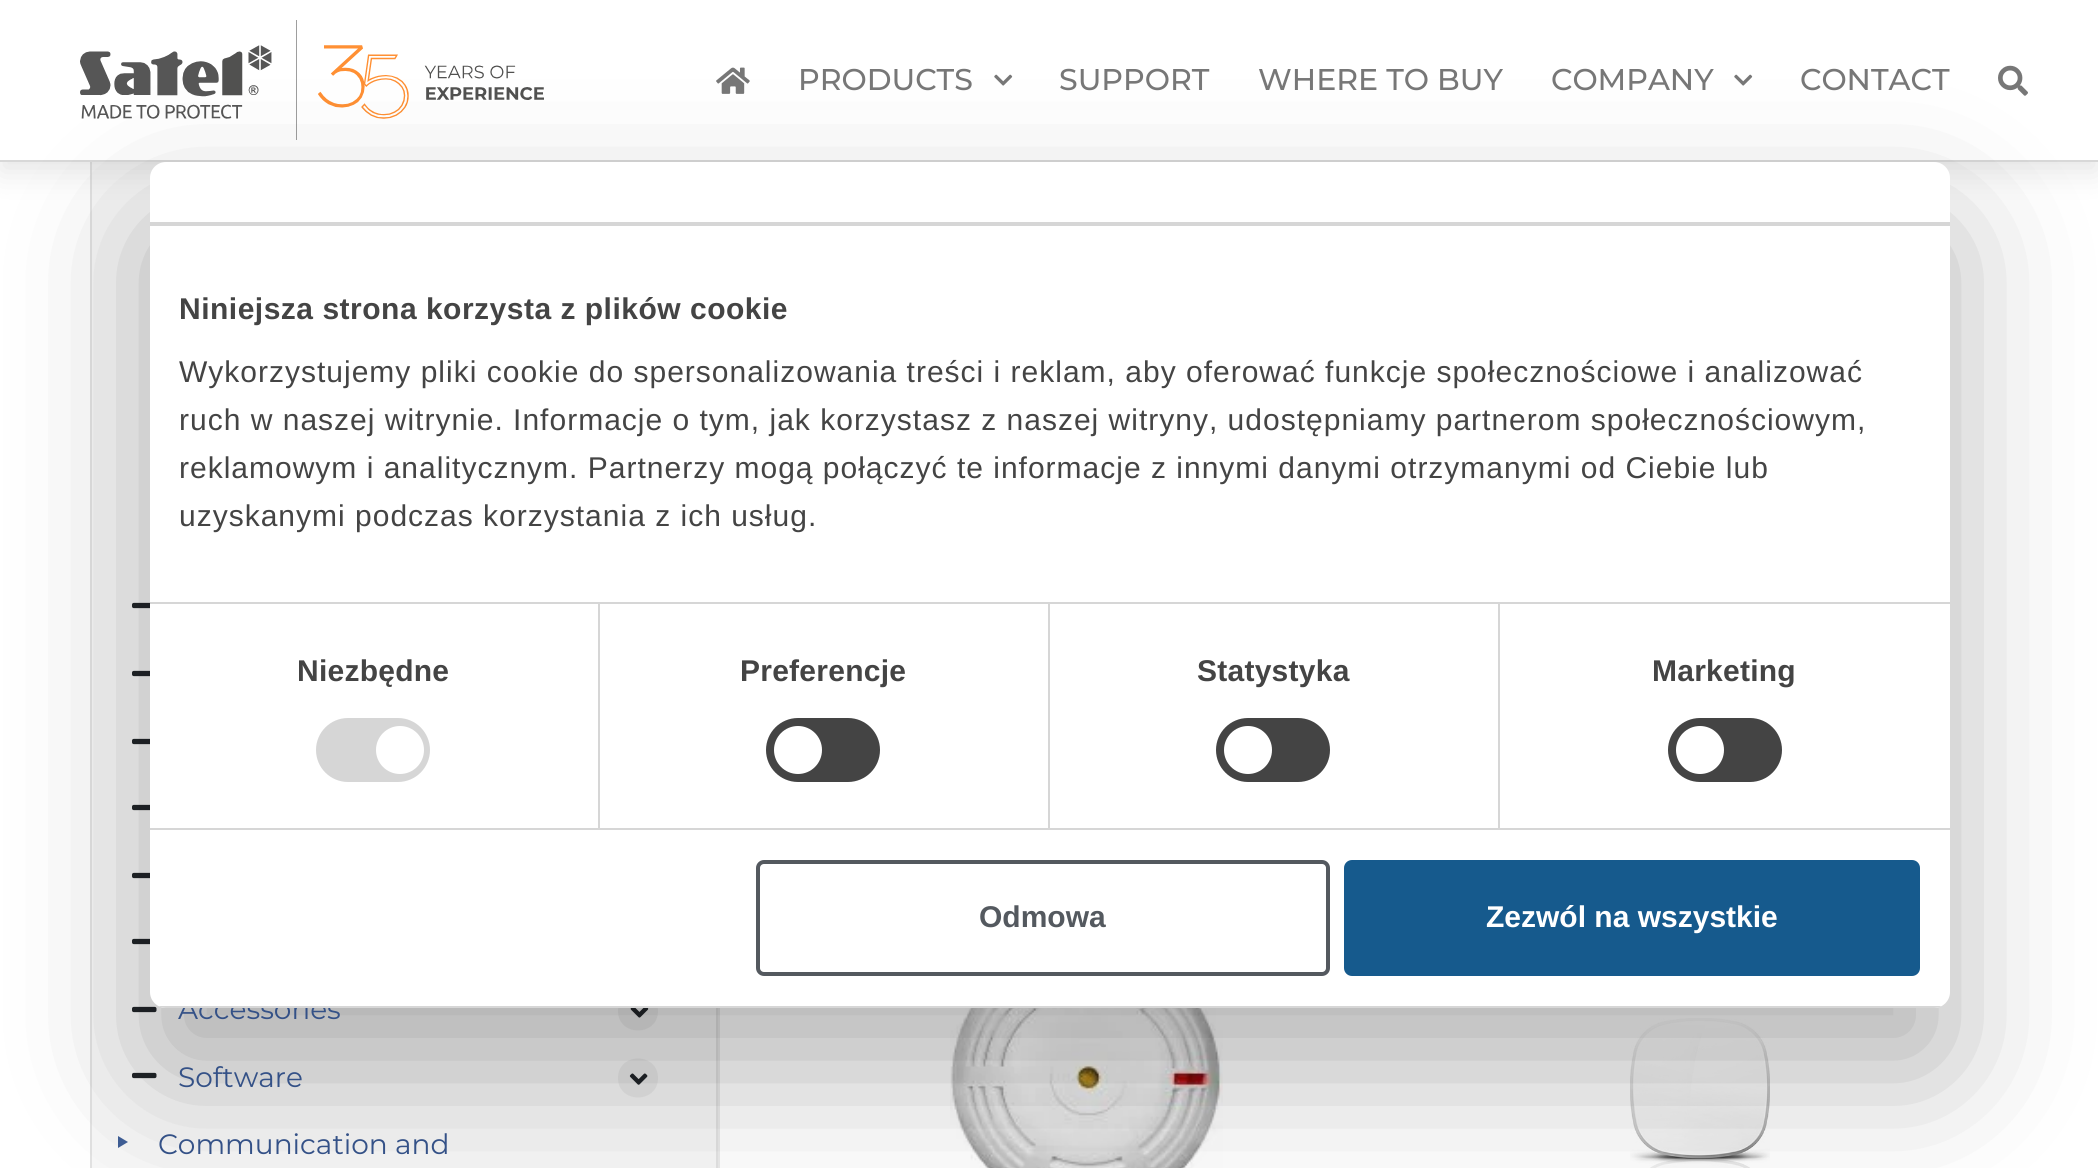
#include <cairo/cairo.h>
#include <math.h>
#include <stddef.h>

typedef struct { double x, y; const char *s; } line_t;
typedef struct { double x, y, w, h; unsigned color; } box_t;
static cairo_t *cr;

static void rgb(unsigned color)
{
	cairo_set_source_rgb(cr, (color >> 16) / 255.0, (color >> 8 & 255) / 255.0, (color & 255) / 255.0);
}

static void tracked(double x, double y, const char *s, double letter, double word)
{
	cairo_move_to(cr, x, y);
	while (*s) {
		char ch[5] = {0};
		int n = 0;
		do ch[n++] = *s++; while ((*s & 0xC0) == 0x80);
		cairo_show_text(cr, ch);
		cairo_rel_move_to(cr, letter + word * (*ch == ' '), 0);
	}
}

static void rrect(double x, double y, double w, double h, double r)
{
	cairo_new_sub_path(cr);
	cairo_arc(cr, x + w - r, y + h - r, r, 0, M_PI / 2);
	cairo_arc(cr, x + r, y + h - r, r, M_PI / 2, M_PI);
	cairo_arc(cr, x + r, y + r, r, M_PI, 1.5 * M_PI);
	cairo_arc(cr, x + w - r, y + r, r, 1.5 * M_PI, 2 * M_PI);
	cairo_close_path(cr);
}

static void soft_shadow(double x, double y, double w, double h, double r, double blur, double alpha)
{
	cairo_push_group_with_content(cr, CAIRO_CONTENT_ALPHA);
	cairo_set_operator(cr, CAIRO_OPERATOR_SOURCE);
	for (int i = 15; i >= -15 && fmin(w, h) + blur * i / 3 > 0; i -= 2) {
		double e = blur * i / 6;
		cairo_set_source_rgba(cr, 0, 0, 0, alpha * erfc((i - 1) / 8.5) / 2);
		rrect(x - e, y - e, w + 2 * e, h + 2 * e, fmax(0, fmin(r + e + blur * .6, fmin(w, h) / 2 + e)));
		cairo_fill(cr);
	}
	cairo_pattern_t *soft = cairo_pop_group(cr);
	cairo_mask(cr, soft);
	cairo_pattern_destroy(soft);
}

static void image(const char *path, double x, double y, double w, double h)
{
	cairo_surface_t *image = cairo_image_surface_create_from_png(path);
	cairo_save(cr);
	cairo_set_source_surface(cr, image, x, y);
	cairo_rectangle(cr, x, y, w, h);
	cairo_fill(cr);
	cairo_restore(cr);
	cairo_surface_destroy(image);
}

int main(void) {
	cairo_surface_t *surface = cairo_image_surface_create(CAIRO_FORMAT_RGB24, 2098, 1168);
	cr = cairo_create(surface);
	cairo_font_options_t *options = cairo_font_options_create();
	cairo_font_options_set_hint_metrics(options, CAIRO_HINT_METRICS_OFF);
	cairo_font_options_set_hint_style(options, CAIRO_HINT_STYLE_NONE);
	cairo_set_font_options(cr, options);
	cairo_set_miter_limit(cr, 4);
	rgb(0xffffff);
	cairo_paint(cr);
	rgb(0xf7f7f7);
	cairo_rectangle(cr, 92, 162, 624, 1006);
	cairo_fill(cr);
	cairo_rectangle(cr, 91, -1, 626, 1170);
	rgb(0xe2e2e2);
	cairo_stroke(cr);
	rgb(0x000000);
	soft_shadow(0, 10, 2098, 162, 0, 15, 0.1);
	rgb(0xffffff);
	cairo_rectangle(cr, 0, 0, 2098, 160);
	cairo_fill(cr);
	rgb(0xd8d8d8);
	cairo_rectangle(cr, 0, 160, 2098, 2);
	cairo_fill(cr);
	image("img/1.png", 80, 20, 464, 120);
	image("img/2.png", 716, 67, 34, 27);
	image("img/3.png", 994, 74, 19, 12);
	image("img/3.png", 1734, 74, 19, 12);
	image("img/4.png", 1998, 65, 30, 31);
	rgb(0xeaeaea);
	cairo_rectangle(cr, 718, 1008, 2, 160);
	cairo_fill(cr);
	image("img/5.png", 132, 602, 18, 7);
	image("img/5.png", 132, 670, 18, 7);
	image("img/5.png", 132, 738, 18, 7);
	image("img/5.png", 132, 804, 18, 7);
	image("img/5.png", 132, 872, 18, 7);
	image("img/5.png", 132, 938, 18, 7);
	image("img/6.png", 132, 1006, 25, 7);
	rgb(0xebebeb);
	cairo_new_path(cr);
	cairo_move_to(cr, 658, 1011);
	cairo_curve_to(cr, 658, 1037, 618, 1037, 618, 1011);
	cairo_curve_to(cr, 618, 985, 658, 985, 658, 1011);
	cairo_close_path(cr);
	cairo_fill(cr);
	image("img/7.png", 630, 1008, 19, 10);
	image("img/6.png", 132, 1072, 25, 7);
	cairo_new_path(cr);
	cairo_move_to(cr, 658, 1078);
	cairo_curve_to(cr, 658, 1104, 618, 1104, 618, 1078);
	cairo_curve_to(cr, 618, 1052, 658, 1052, 658, 1078);
	cairo_close_path(cr);
	cairo_fill(cr);
	image("img/8.png", 629, 1073, 19, 12);
	rgb(0x3f5f97);
	cairo_set_fill_rule(cr, CAIRO_FILL_RULE_EVEN_ODD);
	cairo_new_path(cr);
	cairo_move_to(cr, 118, 1136);
	cairo_line_to(cr, 128, 1142);
	cairo_line_to(cr, 118, 1148);
	cairo_close_path(cr);
	cairo_fill(cr);
	image("img/9.png", 950, 1008, 273, 160);
	image("img/10.png", 1630, 1018, 140, 150);
	rgb(0x000000);
	soft_shadow(150, 226, 1800, 846, 16, 68, 0.3);
	cairo_select_font_face(cr, "Montserrat Medium", CAIRO_FONT_SLANT_NORMAL, CAIRO_FONT_WEIGHT_NORMAL);
	cairo_set_font_size(cr, 30);
	rgb(0x777777);
	{
		static const line_t items[] = {
			{798, 90, "PRODUCTS"},
			{1059, 90, "SUPPORT"},
			{1258, 90, "WHERE TO BUY"},
			{1551, 90, "COMPANY"},
			{1800, 90, "CONTACT"},
		};
		for (size_t i = 0; i < sizeof items / sizeof *items; i++) {
			cairo_move_to(cr, items[i].x, items[i].y);
			cairo_show_text(cr, items[i].s);
		}
	}
	cairo_select_font_face(cr, "Montserrat", CAIRO_FONT_SLANT_NORMAL, CAIRO_FONT_WEIGHT_NORMAL);
	cairo_set_font_size(cr, 28);
	rgb(0x345187);
	cairo_move_to(cr, 178, 1019);
	cairo_show_text(cr, "Accessories");
	rgb(0xffffff);
	rrect(150, 162, 1800, 846, 16);
	cairo_fill(cr);
	rgb(0x165a8d);
	rrect(1346, 862, 572, 112, 6);
	cairo_fill_preserve(cr);
	cairo_set_line_width(cr, 4);
	cairo_stroke(cr);
	cairo_select_font_face(cr, "Liberation Sans", CAIRO_FONT_SLANT_NORMAL, CAIRO_FONT_WEIGHT_BOLD);
	cairo_set_font_size(cr, 30);
	rgb(0xffffff);
	cairo_move_to(cr, 1486, 927);
	cairo_show_text(cr, "Zezwól na wszystkie");
	rrect(758, 862, 570, 112, 6);
	rgb(0x54595f);
	cairo_stroke(cr);
	cairo_move_to(cr, 979, 927);
	cairo_show_text(cr, "Odmowa");
	cairo_save(cr);
	cairo_set_fill_rule(cr, CAIRO_FILL_RULE_WINDING);
	rrect(150, 162, 1800, 846, 16);
	cairo_clip(cr);
	rgb(0xd6d6d6);
	cairo_rectangle(cr, 150, 1006, 1800, 2);
	cairo_fill(cr);
	cairo_restore(cr);
	rgb(0x444444);
	rrect(1668, 718, 114, 64, 32);
	cairo_fill(cr);
	rgb(0xffffff);
	cairo_arc(cr, 1700, 750, 24, 0, 2 * M_PI);
	cairo_fill(cr);
	rgb(0x444444);
	rrect(1216, 718, 114, 64, 32);
	cairo_fill(cr);
	rgb(0xffffff);
	cairo_arc(cr, 1248, 750, 24, 0, 2 * M_PI);
	cairo_fill(cr);
	rgb(0x444444);
	rrect(766, 718, 114, 64, 32);
	cairo_fill(cr);
	rgb(0xffffff);
	cairo_arc(cr, 798, 750, 24, 0, 2 * M_PI);
	cairo_fill(cr);
	rgb(0xd6d6d6);
	rrect(316, 718, 114, 64, 32);
	cairo_fill(cr);
	rgb(0xffffff);
	cairo_arc(cr, 400, 750, 24, 0, 2 * M_PI);
	cairo_fill(cr);
	cairo_select_font_face(cr, "Liberation Sans", CAIRO_FONT_SLANT_NORMAL, CAIRO_FONT_WEIGHT_NORMAL);
	rgb(0x444444);
	{
		static const line_t items[] = {
			{179, 526, "uzyskanymi podczas korzystania z ich usług."},
			{179, 478, "reklamowym i analitycznym. Partnerzy mogą połączyć te informacje z innymi danymi otrzymanymi od Ciebie lub"},
			{179, 430, "ruch w naszej witrynie. Informacje o tym, jak korzystasz z naszej witryny, udostępniamy partnerom społecznościowym,"},
			{179, 382, "Wykorzystujemy pliki cookie do spersonalizowania treści i reklam, aby oferować funkcje społecznościowe i analizować"},
		};
		for (size_t i = 0; i < sizeof items / sizeof *items; i++) {
			tracked(items[i].x, items[i].y, items[i].s, 1, 0);
		}
	}
	cairo_select_font_face(cr, "Liberation Sans", CAIRO_FONT_SLANT_NORMAL, CAIRO_FONT_WEIGHT_BOLD);
	tracked(179, 319, "Niniejsza strona korzysta z plików cookie", 0.5, 0);
	rgb(0xd6d6d6);
	cairo_rectangle(cr, 150, 602, 1800, 2);
	cairo_fill(cr);
	rgb(0x444444);
	tracked(1652, 681, "Marketing", 0.25, 0);
	tracked(1197, 681, "Statystyka", 0.25, 0);
	rgb(0xd6d6d6);
	cairo_rectangle(cr, 1498, 604, 2, 224);
	cairo_fill(cr);
	rgb(0x444444);
	tracked(740, 681, "Preferencje", 0.25, 0);
	rgb(0xd6d6d6);
	cairo_rectangle(cr, 1048, 604, 2, 224);
	cairo_fill(cr);
	rgb(0x444444);
	tracked(297, 681, "Niezbędne", 0.25, 0);
	{
		static const box_t items[] = {
			{598, 604, 2, 224, 0xd6d6d6},
			{150, 828, 1800, 2, 0xd6d6d6},
			{150, 222, 1800, 4, 0xd6d6d6},
		};
		for (size_t i = 0; i < sizeof items / sizeof *items; i++) {
			rgb(items[i].color);
			cairo_rectangle(cr, items[i].x, items[i].y, items[i].w, items[i].h);
			cairo_fill(cr);
		}
	}
	cairo_select_font_face(cr, "Montserrat", CAIRO_FONT_SLANT_NORMAL, CAIRO_FONT_WEIGHT_NORMAL);
	cairo_set_font_size(cr, 28);
	rgb(0x345187);
	cairo_move_to(cr, 178, 1087);
	cairo_show_text(cr, "Software");
	cairo_move_to(cr, 158, 1154);
	cairo_show_text(cr, "Communication and");
	cairo_surface_write_to_png(surface, "page.png");
	cairo_font_options_destroy(options);
	cairo_destroy(cr);
	cairo_surface_destroy(surface);
	return 0;
}
